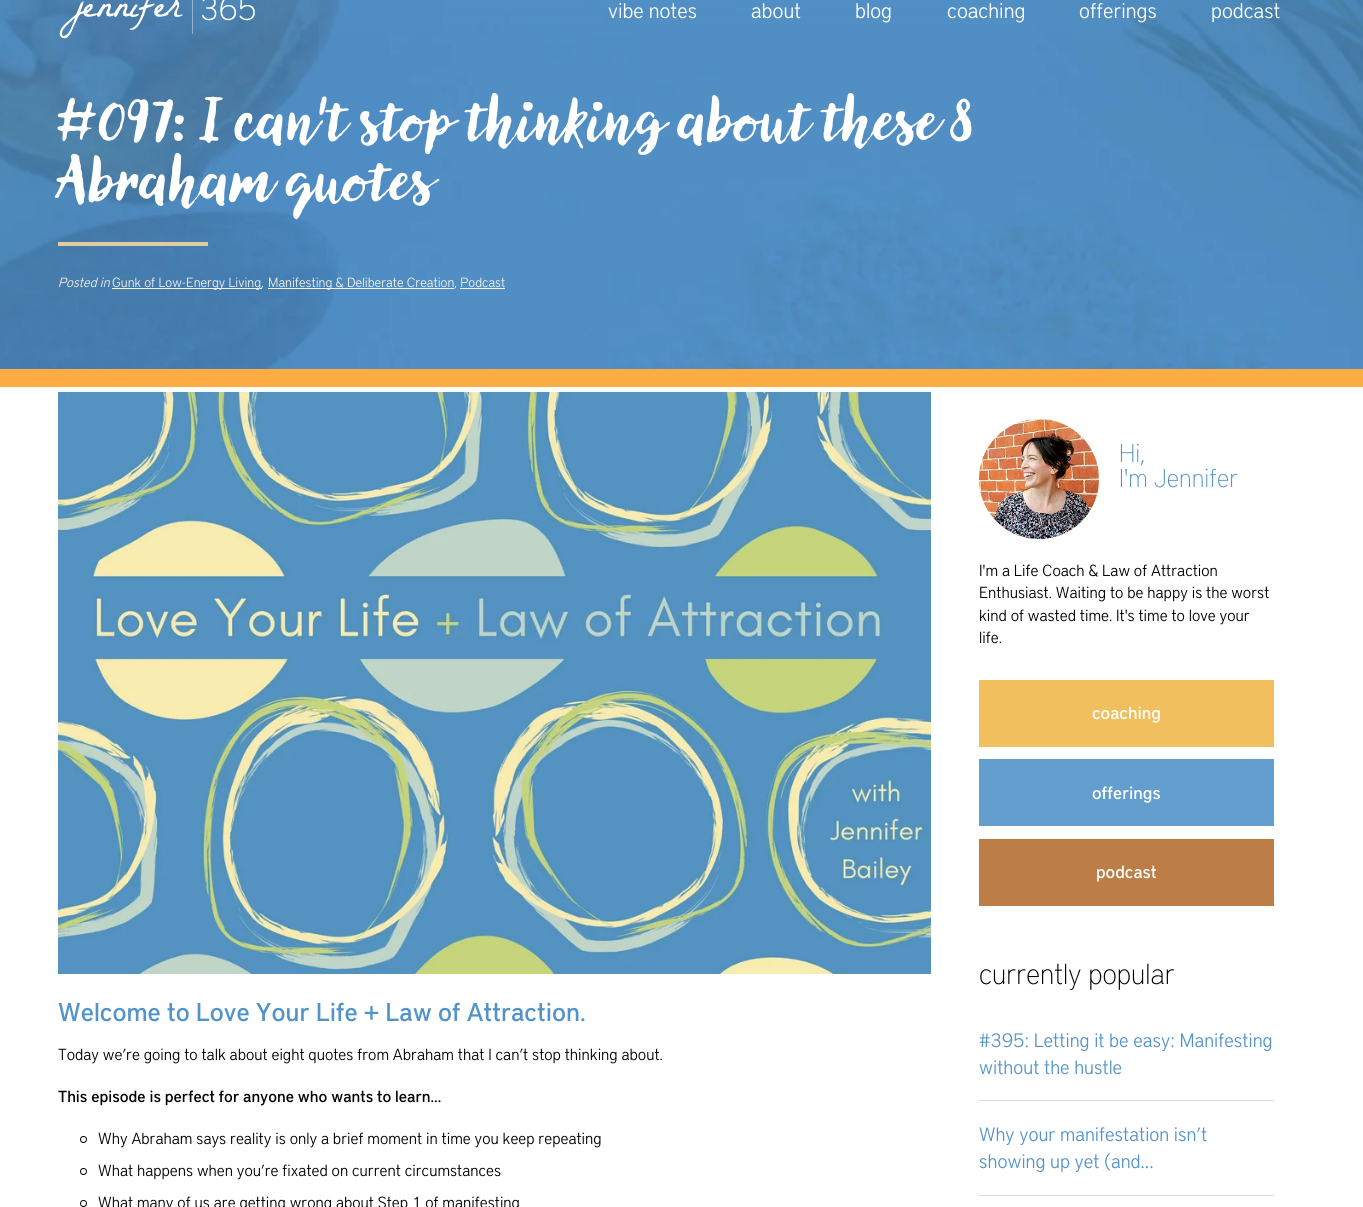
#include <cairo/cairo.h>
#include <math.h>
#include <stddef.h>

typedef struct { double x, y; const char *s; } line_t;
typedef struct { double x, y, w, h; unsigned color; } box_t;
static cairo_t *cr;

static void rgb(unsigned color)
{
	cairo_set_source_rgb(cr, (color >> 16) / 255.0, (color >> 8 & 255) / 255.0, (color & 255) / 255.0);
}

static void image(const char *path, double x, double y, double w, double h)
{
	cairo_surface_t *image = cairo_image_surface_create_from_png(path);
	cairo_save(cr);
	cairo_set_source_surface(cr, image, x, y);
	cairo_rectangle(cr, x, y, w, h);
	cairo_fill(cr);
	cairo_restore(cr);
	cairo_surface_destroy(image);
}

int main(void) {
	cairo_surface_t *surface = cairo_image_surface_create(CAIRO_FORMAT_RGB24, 1363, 1207);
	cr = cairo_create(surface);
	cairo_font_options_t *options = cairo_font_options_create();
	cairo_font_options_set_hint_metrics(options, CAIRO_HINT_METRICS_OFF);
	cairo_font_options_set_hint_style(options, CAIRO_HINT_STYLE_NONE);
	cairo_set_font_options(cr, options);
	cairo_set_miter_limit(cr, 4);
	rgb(0xffffff);
	cairo_paint(cr);
	image("img/1.png", 0, 0, 1363, 369);
	rgb(0xffad43);
	cairo_rectangle(cr, 0, 369, 1363, 18);
	cairo_fill(cr);
	image("img/2.png", 59, 0, 196, 39);
	{
		static const box_t items[] = {
			{58, 242, 150, 4, 0xe2cc9f},
			{112, 288, 150, 1, 0xf6f1e8},
			{268, 288, 186, 1, 0xf6f1e8},
			{460, 288, 45, 1, 0xf6f1e8},
		};
		for (size_t i = 0; i < sizeof items / sizeof *items; i++) {
			rgb(items[i].color);
			cairo_rectangle(cr, items[i].x, items[i].y, items[i].w, items[i].h);
			cairo_fill(cr);
		}
	}
	image("img/3.png", 58, 392, 873, 582);
	cairo_arc(cr, 83.5, 1139.5, 3, 0, 2 * M_PI);
	rgb(0x000000);
	cairo_set_line_width(cr, 1);
	cairo_stroke(cr);
	cairo_arc(cr, 83.5, 1171.5, 3, 0, 2 * M_PI);
	cairo_stroke(cr);
	cairo_arc(cr, 83.5, 1203.5, 3, 0, 2 * M_PI);
	cairo_stroke(cr);
	image("img/4.png", 979, 419, 120, 120);
	{
		static const box_t items[] = {
			{979, 680, 295, 67, 0xf2bf5e},
			{979, 759, 295, 67, 0x649ecf},
			{979, 839, 295, 67, 0xbc7d46},
			{979, 1100, 295, 1, 0xdbdbdb},
			{979, 1195, 295, 1, 0xdbdbdb},
		};
		for (size_t i = 0; i < sizeof items / sizeof *items; i++) {
			rgb(items[i].color);
			cairo_rectangle(cr, items[i].x, items[i].y, items[i].w, items[i].h);
			cairo_fill(cr);
		}
	}
	cairo_select_font_face(cr, "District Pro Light", CAIRO_FONT_SLANT_NORMAL, CAIRO_FONT_WEIGHT_NORMAL);
	cairo_set_font_size(cr, 21);
	rgb(0xffffff);
	{
		static const line_t items[] = {
			{608, 18, "vibe notes"},
			{751, 18, "about"},
			{855, 18, "blog"},
			{947, 18, "coaching"},
			{1079, 18, "offerings"},
			{1211, 18, "podcast"},
		};
		for (size_t i = 0; i < sizeof items / sizeof *items; i++) {
			cairo_move_to(cr, items[i].x, items[i].y);
			cairo_show_text(cr, items[i].s);
		}
	}
	cairo_select_font_face(cr, "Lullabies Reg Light", CAIRO_FONT_SLANT_NORMAL, CAIRO_FONT_WEIGHT_NORMAL);
	cairo_set_font_size(cr, 60);
	cairo_move_to(cr, 58, 140);
	cairo_show_text(cr, "#097: I can't stop thinking about these 8");
	cairo_move_to(cr, 58, 200);
	cairo_show_text(cr, "Abraham quotes");
	cairo_select_font_face(cr, "District Pro Light", CAIRO_FONT_SLANT_ITALIC, CAIRO_FONT_WEIGHT_NORMAL);
	cairo_set_font_size(cr, 13.3);
	rgb(0xf6f1e8);
	cairo_move_to(cr, 58, 287);
	cairo_show_text(cr, "Posted in");
	cairo_select_font_face(cr, "District Pro Light", CAIRO_FONT_SLANT_NORMAL, CAIRO_FONT_WEIGHT_NORMAL);
	cairo_move_to(cr, 112, 287);
	cairo_show_text(cr, "Gunk of Low-Energy Living,");
	cairo_move_to(cr, 268, 287);
	cairo_show_text(cr, "Manifesting & Deliberate Creation, Podcast");
	cairo_select_font_face(cr, "District Pro Medium", CAIRO_FONT_SLANT_NORMAL, CAIRO_FONT_WEIGHT_NORMAL);
	cairo_set_font_size(cr, 25.6);
	rgb(0x5393ca);
	cairo_move_to(cr, 58, 1021);
	cairo_show_text(cr, "Welcome to Love Your Life + Law of Attraction.");
	cairo_select_font_face(cr, "District Pro Light", CAIRO_FONT_SLANT_NORMAL, CAIRO_FONT_WEIGHT_NORMAL);
	cairo_set_font_size(cr, 16);
	rgb(0x000000);
	cairo_move_to(cr, 58, 1060);
	cairo_show_text(cr, "Today we’re going to talk about eight quotes from Abraham that I can’t stop thinking about.");
	cairo_select_font_face(cr, "District Pro Medium", CAIRO_FONT_SLANT_NORMAL, CAIRO_FONT_WEIGHT_NORMAL);
	cairo_move_to(cr, 58, 1102);
	cairo_show_text(cr, "This episode is perfect for anyone who wants to learn…");
	cairo_select_font_face(cr, "District Pro Light", CAIRO_FONT_SLANT_NORMAL, CAIRO_FONT_WEIGHT_NORMAL);
	{
		static const line_t items[] = {
			{98, 1144, "Why Abraham says reality is only a brief moment in time you keep repeating"},
			{98, 1176, "What happens when you’re fixated on current circumstances"},
			{98, 1208, "What many of us are getting wrong about Step 1 of manifesting"},
		};
		for (size_t i = 0; i < sizeof items / sizeof *items; i++) {
			cairo_move_to(cr, items[i].x, items[i].y);
			cairo_show_text(cr, items[i].s);
		}
	}
	cairo_select_font_face(cr, "District Pro Thin", CAIRO_FONT_SLANT_NORMAL, CAIRO_FONT_WEIGHT_NORMAL);
	cairo_set_font_size(cr, 25.6);
	rgb(0x5393ca);
	cairo_move_to(cr, 1119, 462);
	cairo_show_text(cr, "Hi,");
	cairo_move_to(cr, 1119, 487);
	cairo_show_text(cr, "I'm Jennifer");
	cairo_select_font_face(cr, "District Pro Light", CAIRO_FONT_SLANT_NORMAL, CAIRO_FONT_WEIGHT_NORMAL);
	cairo_set_font_size(cr, 16);
	rgb(0x000000);
	{
		static const line_t items[] = {
			{979, 576, "I'm a Life Coach & Law of Attraction"},
			{979, 598, "Enthusiast. Waiting to be happy is the worst"},
			{979, 621, "kind of wasted time. It's time to love your"},
			{979, 643, "life."},
		};
		for (size_t i = 0; i < sizeof items / sizeof *items; i++) {
			cairo_move_to(cr, items[i].x, items[i].y);
			cairo_show_text(cr, items[i].s);
		}
	}
	cairo_select_font_face(cr, "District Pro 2 Medium", CAIRO_FONT_SLANT_NORMAL, CAIRO_FONT_WEIGHT_NORMAL);
	cairo_set_font_size(cr, 17.5);
	rgb(0xffffff);
	{
		static const line_t items[] = {
			{1092, 719, "coaching"},
			{1092, 799, "offerings"},
			{1096, 878, "podcast"},
		};
		for (size_t i = 0; i < sizeof items / sizeof *items; i++) {
			cairo_move_to(cr, items[i].x, items[i].y);
			cairo_show_text(cr, items[i].s);
		}
	}
	cairo_select_font_face(cr, "District Pro Thin", CAIRO_FONT_SLANT_NORMAL, CAIRO_FONT_WEIGHT_NORMAL);
	cairo_set_font_size(cr, 28.75);
	rgb(0x000000);
	cairo_move_to(cr, 979, 984);
	cairo_show_text(cr, "currently popular");
	cairo_select_font_face(cr, "District Pro Light", CAIRO_FONT_SLANT_NORMAL, CAIRO_FONT_WEIGHT_NORMAL);
	cairo_set_font_size(cr, 19.25);
	rgb(0x5393ca);
	{
		static const line_t items[] = {
			{979, 1047, "#395: Letting it be easy: Manifesting"},
			{979, 1074, "without the hustle"},
			{979, 1141, "Why your manifestation isn’t"},
			{979, 1168, "showing up yet (and…"},
		};
		for (size_t i = 0; i < sizeof items / sizeof *items; i++) {
			cairo_move_to(cr, items[i].x, items[i].y);
			cairo_show_text(cr, items[i].s);
		}
	}
	cairo_surface_write_to_png(surface, "page.png");
	cairo_font_options_destroy(options);
	cairo_destroy(cr);
	cairo_surface_destroy(surface);
	return 0;
}
